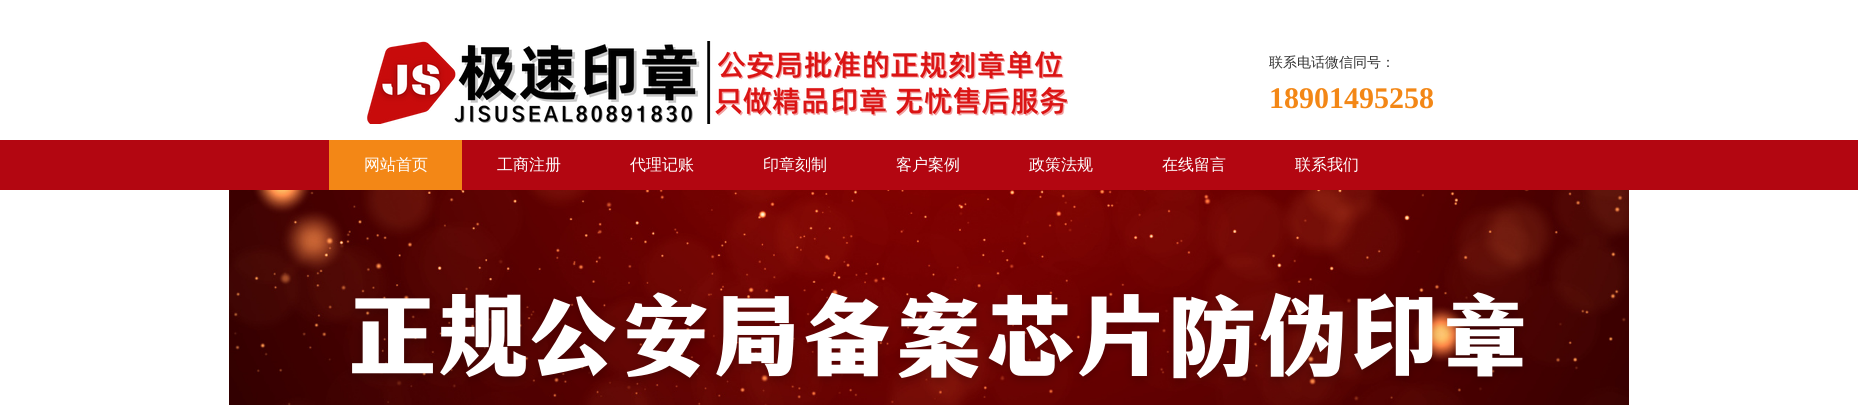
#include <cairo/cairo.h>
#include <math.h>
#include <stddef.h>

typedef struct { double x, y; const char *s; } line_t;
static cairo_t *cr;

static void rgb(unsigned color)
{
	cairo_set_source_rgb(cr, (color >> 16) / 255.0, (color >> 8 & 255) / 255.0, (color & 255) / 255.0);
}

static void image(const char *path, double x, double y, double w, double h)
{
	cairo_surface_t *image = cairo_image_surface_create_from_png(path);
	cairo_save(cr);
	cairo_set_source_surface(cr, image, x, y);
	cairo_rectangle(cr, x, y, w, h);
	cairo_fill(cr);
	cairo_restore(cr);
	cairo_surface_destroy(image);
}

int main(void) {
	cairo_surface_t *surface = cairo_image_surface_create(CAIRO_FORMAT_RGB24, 1858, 405);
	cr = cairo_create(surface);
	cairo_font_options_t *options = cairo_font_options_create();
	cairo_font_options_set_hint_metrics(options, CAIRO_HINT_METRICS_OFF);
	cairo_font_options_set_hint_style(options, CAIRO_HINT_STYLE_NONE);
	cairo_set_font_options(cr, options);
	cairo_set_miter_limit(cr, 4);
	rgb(0xffffff);
	cairo_paint(cr);
	image("img/1.png", 367, 41, 701, 83);
	rgb(0xb30611);
	cairo_rectangle(cr, 0, 140, 1858, 50);
	cairo_fill(cr);
	rgb(0xf38716);
	cairo_rectangle(cr, 329, 140, 133, 50);
	cairo_fill(cr);
	image("img/2.png", 229, 190, 1400, 215);
	cairo_select_font_face(cr, "WenQuanYi Zen Hei Medium", CAIRO_FONT_SLANT_NORMAL, CAIRO_FONT_WEIGHT_NORMAL);
	cairo_set_font_size(cr, 14);
	rgb(0x333333);
	cairo_move_to(cr, 1269, 67);
	cairo_show_text(cr, "联系电话微信同号：");
	cairo_select_font_face(cr, "Liberation Serif", CAIRO_FONT_SLANT_NORMAL, CAIRO_FONT_WEIGHT_BOLD);
	cairo_set_font_size(cr, 30);
	rgb(0xf38716);
	cairo_move_to(cr, 1269, 108);
	cairo_show_text(cr, "18901495258");
	cairo_select_font_face(cr, "WenQuanYi Zen Hei Medium", CAIRO_FONT_SLANT_NORMAL, CAIRO_FONT_WEIGHT_NORMAL);
	cairo_set_font_size(cr, 16);
	rgb(0xffffff);
	{
		static const line_t items[] = {
			{364, 170, "网站首页"},
			{497, 170, "工商注册"},
			{630, 170, "代理记账"},
			{763, 170, "印章刻制"},
			{896, 170, "客户案例"},
			{1029, 170, "政策法规"},
			{1162, 170, "在线留言"},
			{1295, 170, "联系我们"},
		};
		for (size_t i = 0; i < sizeof items / sizeof *items; i++) {
			cairo_move_to(cr, items[i].x, items[i].y);
			cairo_show_text(cr, items[i].s);
		}
	}
	cairo_surface_write_to_png(surface, "page.png");
	cairo_font_options_destroy(options);
	cairo_destroy(cr);
	cairo_surface_destroy(surface);
	return 0;
}
